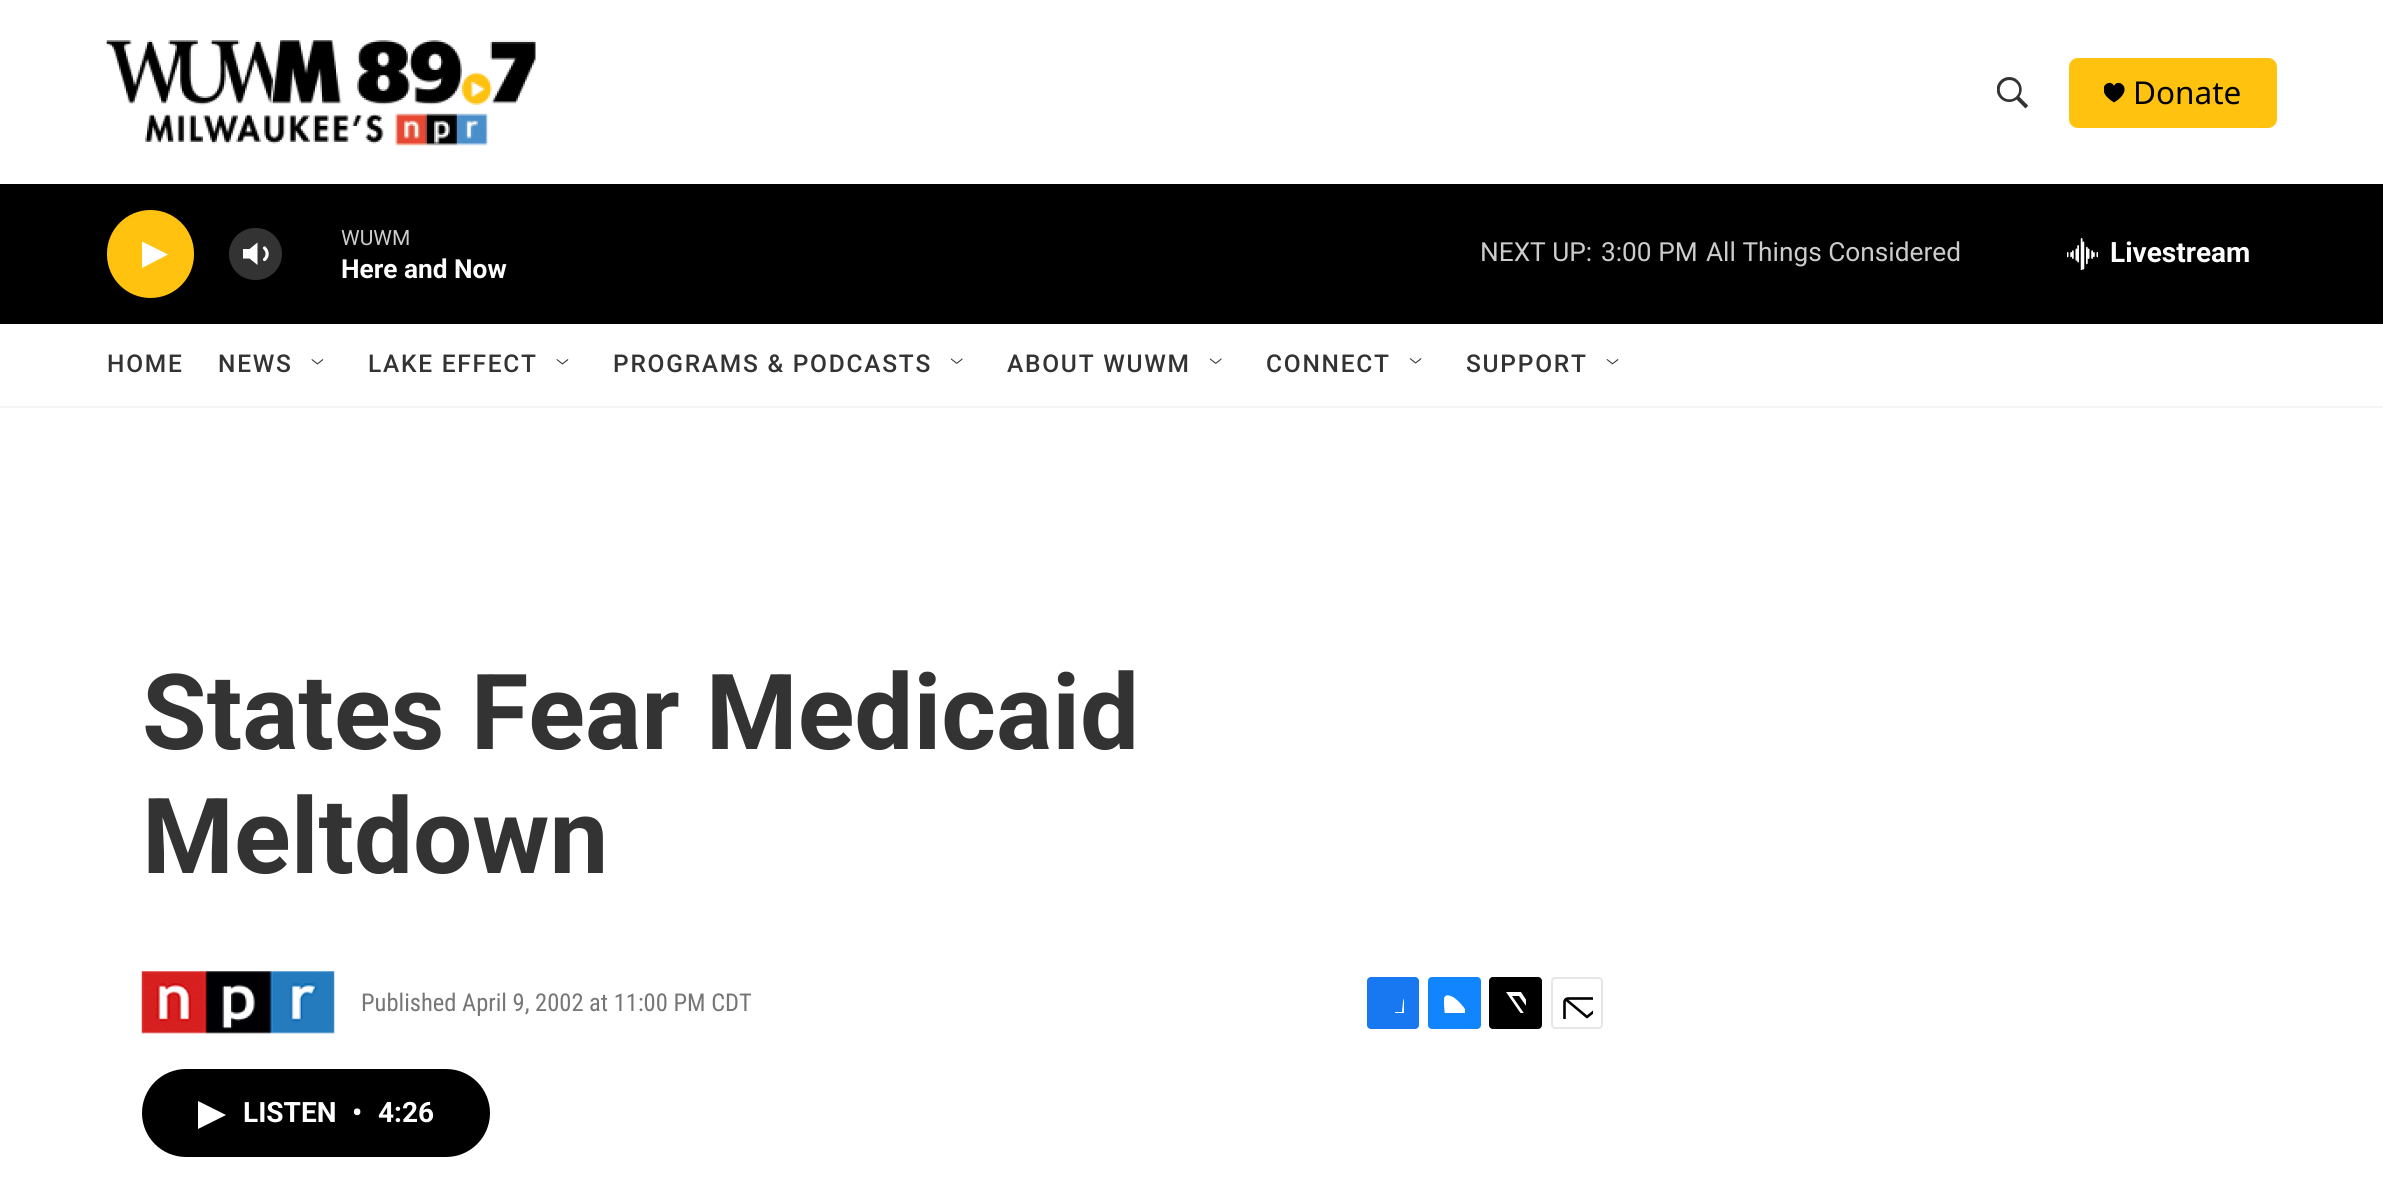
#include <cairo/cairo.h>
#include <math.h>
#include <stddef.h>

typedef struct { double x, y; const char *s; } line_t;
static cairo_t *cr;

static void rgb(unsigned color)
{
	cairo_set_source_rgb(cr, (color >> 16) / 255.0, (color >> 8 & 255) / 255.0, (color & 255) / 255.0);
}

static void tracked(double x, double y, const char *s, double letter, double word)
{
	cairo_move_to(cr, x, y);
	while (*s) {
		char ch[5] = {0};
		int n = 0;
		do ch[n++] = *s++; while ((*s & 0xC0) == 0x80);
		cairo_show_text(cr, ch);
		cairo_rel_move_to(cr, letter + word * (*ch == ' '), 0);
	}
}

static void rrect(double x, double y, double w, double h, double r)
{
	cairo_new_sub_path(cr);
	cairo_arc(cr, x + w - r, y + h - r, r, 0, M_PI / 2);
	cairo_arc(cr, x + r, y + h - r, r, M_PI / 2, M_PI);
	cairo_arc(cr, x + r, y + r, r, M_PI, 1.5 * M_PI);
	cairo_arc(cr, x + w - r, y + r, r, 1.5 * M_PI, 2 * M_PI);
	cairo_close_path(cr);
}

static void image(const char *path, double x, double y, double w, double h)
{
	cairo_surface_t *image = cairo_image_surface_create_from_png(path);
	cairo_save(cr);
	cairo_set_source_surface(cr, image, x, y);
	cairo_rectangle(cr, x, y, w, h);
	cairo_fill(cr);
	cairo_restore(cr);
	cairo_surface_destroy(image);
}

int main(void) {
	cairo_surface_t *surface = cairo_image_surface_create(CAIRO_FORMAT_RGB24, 2383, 1177);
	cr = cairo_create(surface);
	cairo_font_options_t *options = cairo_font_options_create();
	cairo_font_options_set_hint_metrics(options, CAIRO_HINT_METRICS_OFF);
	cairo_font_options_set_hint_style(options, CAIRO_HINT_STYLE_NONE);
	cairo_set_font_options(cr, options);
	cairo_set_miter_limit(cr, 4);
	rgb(0xffffff);
	cairo_paint(cr);
	rgb(0xf5f5f5);
	cairo_rectangle(cr, 0, 406, 2383, 2);
	cairo_fill(cr);
	image("img/1.png", 106, 40, 430, 106);
	image("img/2.png", 1997, 77, 31, 32);
	rgb(0xffc20e);
	rrect(2069, 58, 208, 70, 9);
	cairo_fill(cr);
	cairo_save(cr);
	cairo_rectangle(cr, 2104, 82, 21, 21);
	cairo_clip(cr);
	rgb(0x000000);
	cairo_new_path(cr);
	cairo_move_to(cr, 2114, 86);
	cairo_curve_to(cr, 2110.5, 77, 2092, 89, 2114, 102.5);
	cairo_curve_to(cr, 2136, 89, 2117.5, 77, 2114, 86);
	cairo_close_path(cr);
	cairo_fill(cr);
	cairo_restore(cr);
	rgb(0x000000);
	cairo_rectangle(cr, 0, 184, 2383, 140);
	cairo_fill(cr);
	rgb(0xffc20e);
	rrect(107, 210, 87, 88, 43.5);
	cairo_fill(cr);
	rgb(0xffffff);
	cairo_new_path(cr);
	cairo_move_to(cr, 142, 241.5);
	cairo_line_to(cr, 168, 254.5);
	cairo_line_to(cr, 142, 268);
	cairo_close_path(cr);
	cairo_fill(cr);
	cairo_new_path(cr);
	cairo_move_to(cr, 257.5, 242.5);
	cairo_line_to(cr, 249.5, 249);
	cairo_line_to(cr, 243, 249);
	cairo_line_to(cr, 243, 258.5);
	cairo_line_to(cr, 249.5, 258.5);
	cairo_line_to(cr, 257.5, 265);
	cairo_close_path(cr);
	cairo_fill(cr);
	cairo_new_path(cr);
	cairo_move_to(cr, 264.5, 248);
	cairo_curve_to(cr, 268, 251.5, 268, 256.5, 264.5, 259.5);
	cairo_set_line_width(cr, 3.2);
	cairo_set_line_cap(cr, CAIRO_LINE_CAP_ROUND);
	cairo_set_line_join(cr, CAIRO_LINE_JOIN_ROUND);
	cairo_stroke(cr);
	cairo_set_source_rgba(cr, 1, 1, 1, 0.2);
	rrect(229, 228, 53, 52, 26);
	cairo_fill(cr);
	image("img/3.png", 2067, 238, 31, 32);
	image("img/4.png", 311, 359, 13, 6);
	image("img/4.png", 556, 359, 13, 6);
	image("img/5.png", 950, 358, 13, 6);
	image("img/5.png", 1209, 358, 13, 6);
	image("img/6.png", 1409, 358, 13, 6);
	image("img/7.png", 1606, 358, 13, 7);
	image("img/8.png", 141, 971, 194, 63);
	rgb(0x1778f2);
	rrect(1367, 977, 52, 52, 4);
	cairo_fill(cr);
	cairo_save(cr);
	cairo_rectangle(cr, 1383, 992, 21, 21);
	cairo_clip(cr);
	rgb(0xffffff);
	cairo_new_path(cr);
	cairo_move_to(cr, 1412, 1029);
	cairo_line_to(cr, 1402, 1029);
	cairo_line_to(cr, 1402, 1020);
	cairo_line_to(cr, 1395, 1020);
	cairo_line_to(cr, 1395, 1012);
	cairo_line_to(cr, 1402, 1012);
	cairo_line_to(cr, 1403, 1002);
	cairo_curve_to(cr, 1404, 993.5, 1411.5, 992, 1419, 993);
	cairo_line_to(cr, 1419, 1001);
	cairo_curve_to(cr, 1411.5, 1001, 1411.5, 1002, 1412, 1008);
	cairo_line_to(cr, 1412, 1012);
	cairo_line_to(cr, 1419, 1012);
	cairo_line_to(cr, 1419, 1020);
	cairo_line_to(cr, 1412, 1020);
	cairo_close_path(cr);
	cairo_fill(cr);
	cairo_restore(cr);
	rgb(0x1185fe);
	rrect(1428, 977, 53, 52, 4);
	cairo_fill(cr);
	image("img/9.png", 1444, 995, 21, 18);
	rgb(0x000000);
	rrect(1489, 977, 53, 52, 4);
	cairo_fill(cr);
	cairo_save(cr);
	cairo_rectangle(cr, 1505, 992, 21, 21);
	cairo_clip(cr);
	rgb(0xffffff);
	cairo_new_path(cr);
	cairo_move_to(cr, 1536, 1014);
	cairo_line_to(cr, 1542, 1023);
	cairo_curve_to(cr, 1542, 1024.5, 1542, 1026, 1541.5, 1027.5);
	cairo_line_to(cr, 1519, 996);
	cairo_line_to(cr, 1512, 996);
	cairo_line_to(cr, 1530, 1022);
	cairo_line_to(cr, 1535, 1029);
	cairo_line_to(cr, 1531.5, 1029);
	cairo_line_to(cr, 1528, 1024);
	cairo_line_to(cr, 1523.5, 1029);
	cairo_line_to(cr, 1519.5, 1029);
	cairo_line_to(cr, 1526, 1021);
	cairo_line_to(cr, 1506, 992);
	cairo_line_to(cr, 1521, 992);
	cairo_line_to(cr, 1534, 1012);
	cairo_line_to(cr, 1542, 1002.5);
	cairo_line_to(cr, 1542, 1007);
	cairo_close_path(cr);
	cairo_fill(cr);
	cairo_restore(cr);
	rrect(1552, 978, 50, 50, 3);
	rgb(0xe6e6e6);
	cairo_set_line_width(cr, 2);
	cairo_set_line_cap(cr, CAIRO_LINE_CAP_BUTT);
	cairo_set_line_join(cr, CAIRO_LINE_JOIN_MITER);
	cairo_stroke(cr);
	cairo_save(cr);
	cairo_rectangle(cr, 1561, 987, 32, 32);
	cairo_clip(cr);
	cairo_new_path(cr);
	cairo_move_to(cr, 1610, 1025.5);
	cairo_curve_to(cr, 1610, 1027, 1608.5, 1028.5, 1606.5, 1028.5);
	cairo_line_to(cr, 1568, 1028.5);
	cairo_curve_to(cr, 1566, 1028.5, 1564.5, 1027, 1564.5, 1025.5);
	cairo_line_to(cr, 1564.5, 1002);
	cairo_curve_to(cr, 1564.5, 1000, 1566, 998.5, 1568, 998.5);
	cairo_line_to(cr, 1606.5, 998.5);
	cairo_curve_to(cr, 1608.5, 998.5, 1610, 1000, 1610, 1002);
	cairo_close_path(cr);
	cairo_move_to(cr, 1608.5, 999.5);
	cairo_line_to(cr, 1587, 1017);
	cairo_line_to(cr, 1566, 999.5);
	rgb(0x000000);
	cairo_set_line_width(cr, 2.6);
	cairo_set_line_cap(cr, CAIRO_LINE_CAP_ROUND);
	cairo_set_line_join(cr, CAIRO_LINE_JOIN_ROUND);
	cairo_stroke(cr);
	cairo_restore(cr);
	rgb(0x000000);
	rrect(142, 1069, 348, 88, 44);
	cairo_fill(cr);
	rgb(0xffffff);
	cairo_new_path(cr);
	cairo_move_to(cr, 198, 1101);
	cairo_line_to(cr, 226, 1115);
	cairo_line_to(cr, 198, 1129);
	cairo_close_path(cr);
	cairo_fill(cr);
	cairo_select_font_face(cr, "Noto Sans", CAIRO_FONT_SLANT_NORMAL, CAIRO_FONT_WEIGHT_NORMAL);
	cairo_set_font_size(cr, 31.5);
	rgb(0x000000);
	cairo_move_to(cr, 2133, 104);
	cairo_show_text(cr, "Donate");
	cairo_select_font_face(cr, "Roboto", CAIRO_FONT_SLANT_NORMAL, CAIRO_FONT_WEIGHT_NORMAL);
	cairo_set_font_size(cr, 21);
	rgb(0xcccccc);
	cairo_move_to(cr, 341, 245);
	cairo_show_text(cr, "WUWM");
	cairo_select_font_face(cr, "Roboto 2", CAIRO_FONT_SLANT_NORMAL, CAIRO_FONT_WEIGHT_BOLD);
	cairo_set_font_size(cr, 26.25);
	rgb(0xffffff);
	cairo_move_to(cr, 341, 278);
	cairo_show_text(cr, "Here and Now");
	cairo_select_font_face(cr, "Roboto", CAIRO_FONT_SLANT_NORMAL, CAIRO_FONT_WEIGHT_NORMAL);
	rgb(0xcccccc);
	{
		static const line_t items[] = {
			{1480, 261, "NEXT UP:"},
			{1601, 261, "3:00 PM"},
			{1706, 261, "All Things Considered"},
		};
		for (size_t i = 0; i < sizeof items / sizeof *items; i++) {
			cairo_move_to(cr, items[i].x, items[i].y);
			cairo_show_text(cr, items[i].s);
		}
	}
	cairo_select_font_face(cr, "Roboto 2", CAIRO_FONT_SLANT_NORMAL, CAIRO_FONT_WEIGHT_BOLD);
	cairo_set_font_size(cr, 28);
	rgb(0xffffff);
	cairo_move_to(cr, 2110, 262);
	cairo_show_text(cr, "Livestream");
	cairo_select_font_face(cr, "Roboto Medium", CAIRO_FONT_SLANT_NORMAL, CAIRO_FONT_WEIGHT_NORMAL);
	cairo_set_font_size(cr, 24.5);
	rgb(0x333333);
	{
		static const line_t items[] = {
			{107, 372, "HOME"},
			{218, 372, "NEWS"},
			{368, 372, "LAKE EFFECT"},
			{613, 372, "PROGRAMS & PODCASTS"},
			{1007, 372, "ABOUT WUWM"},
			{1266, 372, "CONNECT"},
			{1466, 372, "SUPPORT"},
		};
		for (size_t i = 0; i < sizeof items / sizeof *items; i++) {
			tracked(items[i].x, items[i].y, items[i].s, 1.75, 0);
		}
	}
	cairo_select_font_face(cr, "Roboto", CAIRO_FONT_SLANT_NORMAL, CAIRO_FONT_WEIGHT_BOLD);
	cairo_set_font_size(cr, 105);
	cairo_move_to(cr, 142, 749);
	cairo_show_text(cr, "States Fear Medicaid");
	cairo_move_to(cr, 142, 873);
	cairo_show_text(cr, "Meltdown");
	cairo_select_font_face(cr, "Roboto Condensed", CAIRO_FONT_SLANT_NORMAL, CAIRO_FONT_WEIGHT_NORMAL);
	cairo_set_font_size(cr, 24.5);
	rgb(0x767676);
	cairo_move_to(cr, 361, 1011);
	cairo_show_text(cr, "Published April 9, 2002 at 11:00 PM CDT");
	cairo_select_font_face(cr, "Roboto 2", CAIRO_FONT_SLANT_NORMAL, CAIRO_FONT_WEIGHT_BOLD);
	cairo_set_font_size(cr, 28);
	rgb(0xffffff);
	{
		static const line_t items[] = {
			{243, 1122, "LISTEN"},
			{352, 1122, "•"},
			{378, 1122, "4:26"},
		};
		for (size_t i = 0; i < sizeof items / sizeof *items; i++) {
			cairo_move_to(cr, items[i].x, items[i].y);
			cairo_show_text(cr, items[i].s);
		}
	}
	cairo_surface_write_to_png(surface, "page.png");
	cairo_font_options_destroy(options);
	cairo_destroy(cr);
	cairo_surface_destroy(surface);
	return 0;
}
